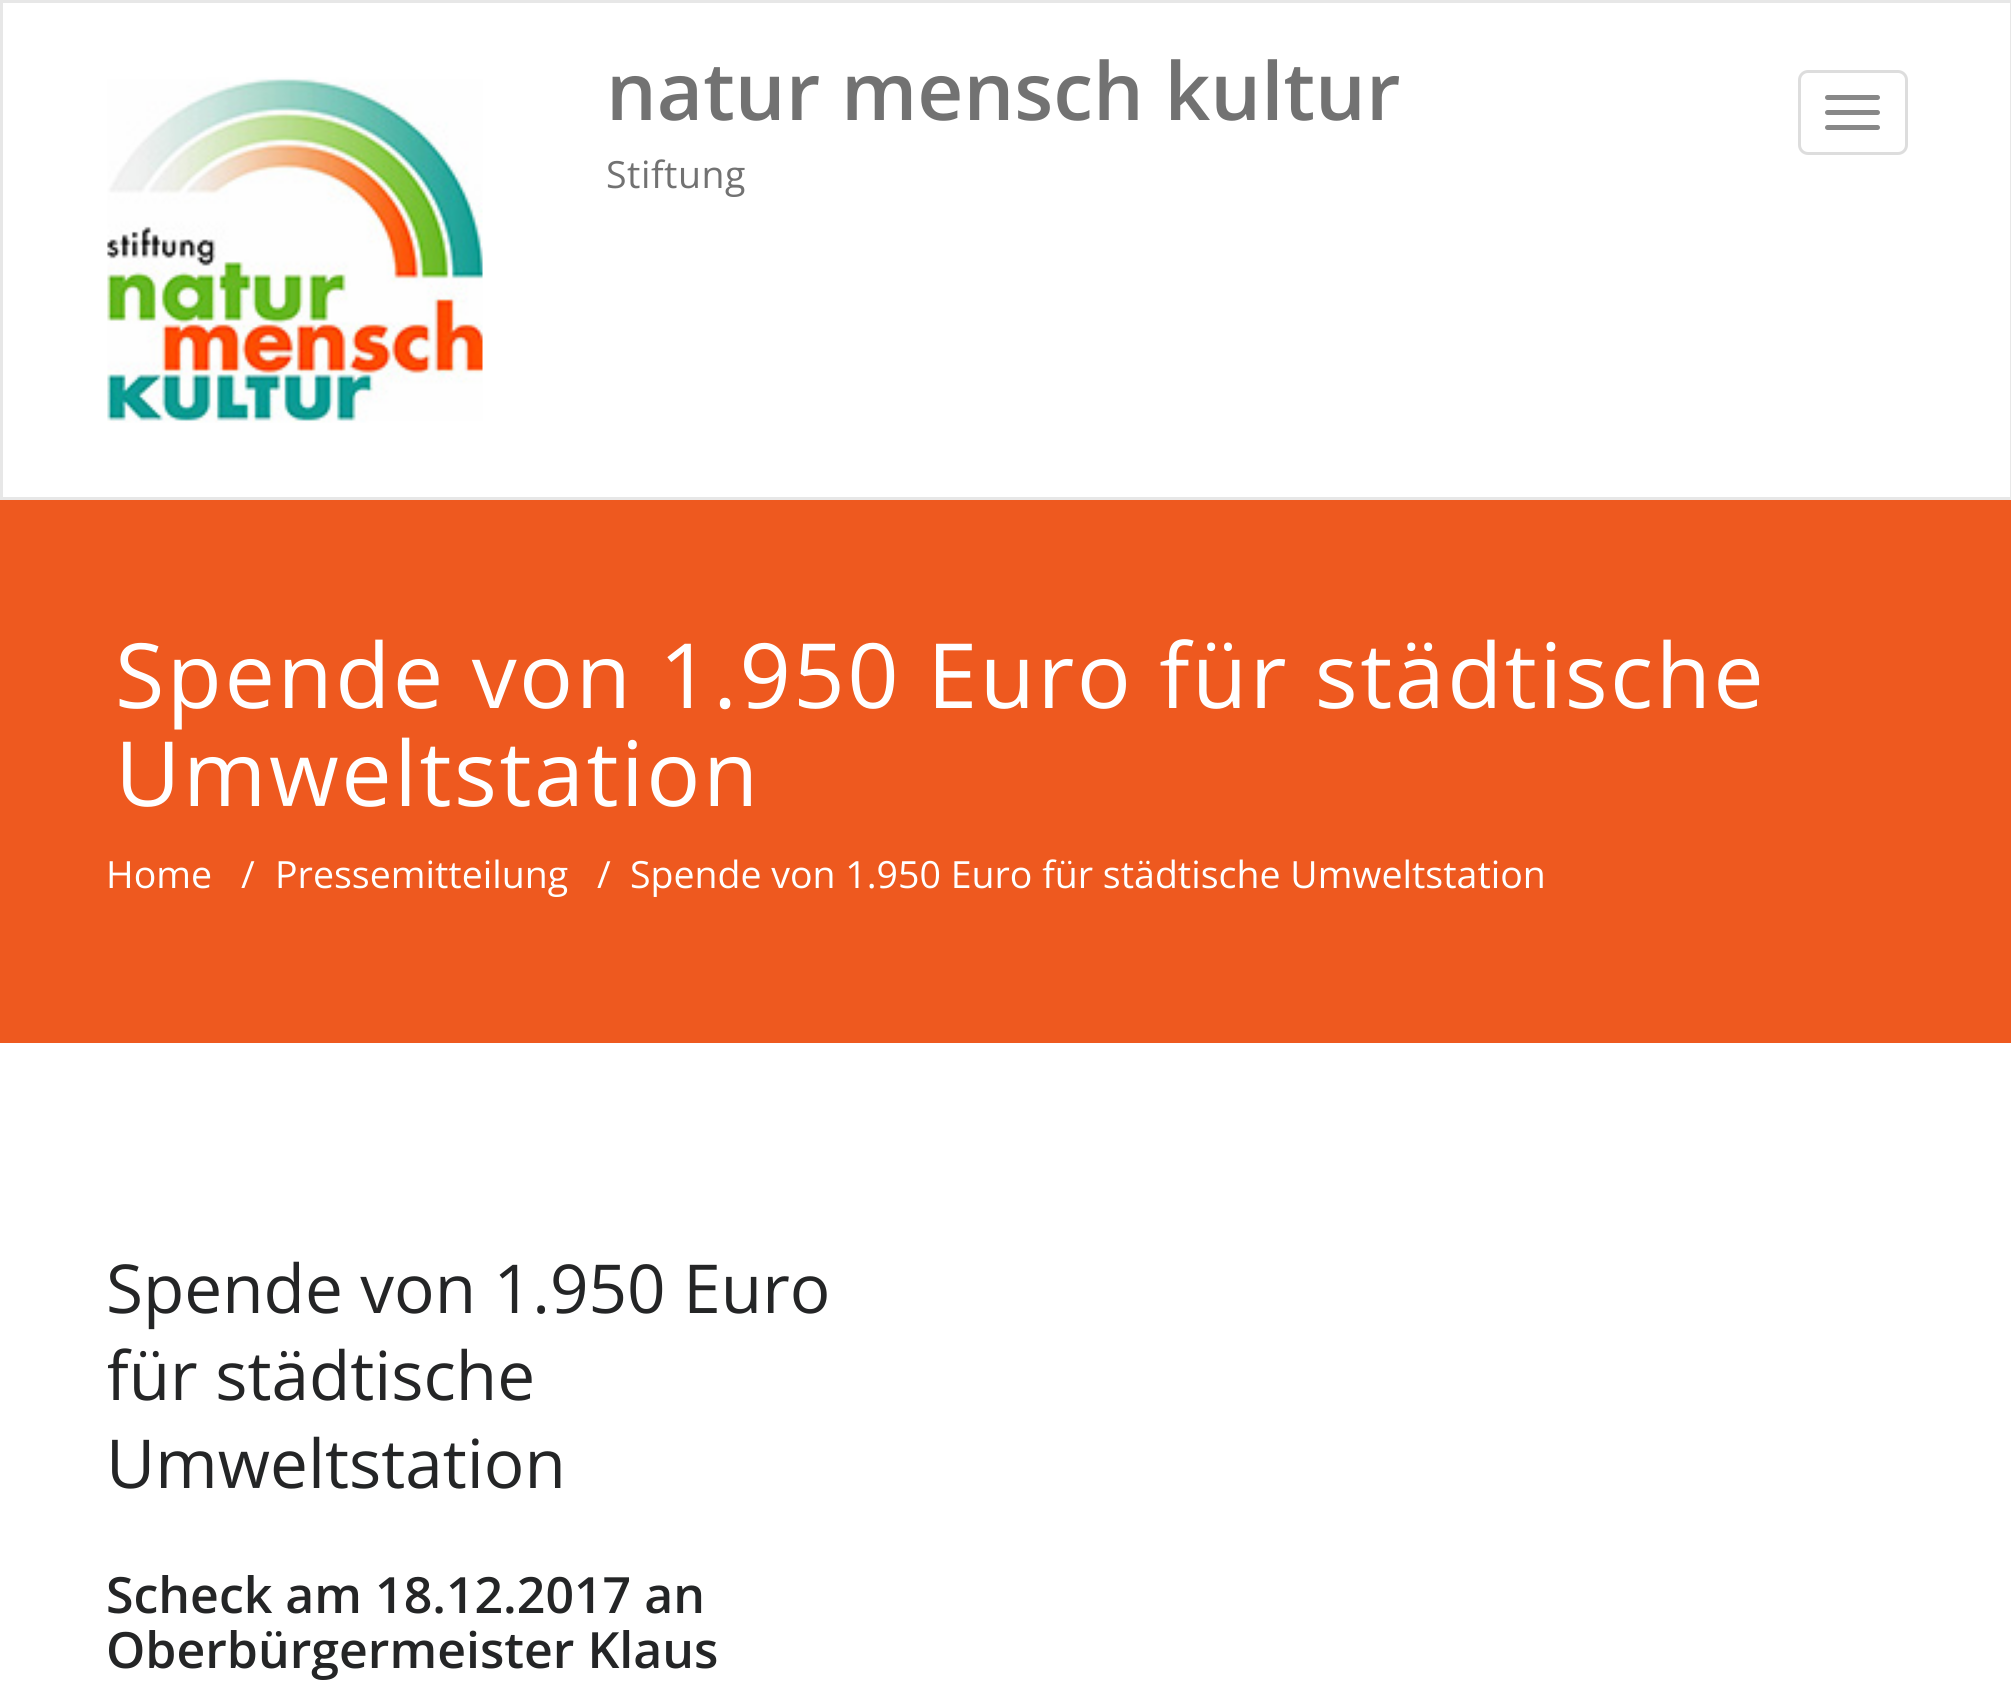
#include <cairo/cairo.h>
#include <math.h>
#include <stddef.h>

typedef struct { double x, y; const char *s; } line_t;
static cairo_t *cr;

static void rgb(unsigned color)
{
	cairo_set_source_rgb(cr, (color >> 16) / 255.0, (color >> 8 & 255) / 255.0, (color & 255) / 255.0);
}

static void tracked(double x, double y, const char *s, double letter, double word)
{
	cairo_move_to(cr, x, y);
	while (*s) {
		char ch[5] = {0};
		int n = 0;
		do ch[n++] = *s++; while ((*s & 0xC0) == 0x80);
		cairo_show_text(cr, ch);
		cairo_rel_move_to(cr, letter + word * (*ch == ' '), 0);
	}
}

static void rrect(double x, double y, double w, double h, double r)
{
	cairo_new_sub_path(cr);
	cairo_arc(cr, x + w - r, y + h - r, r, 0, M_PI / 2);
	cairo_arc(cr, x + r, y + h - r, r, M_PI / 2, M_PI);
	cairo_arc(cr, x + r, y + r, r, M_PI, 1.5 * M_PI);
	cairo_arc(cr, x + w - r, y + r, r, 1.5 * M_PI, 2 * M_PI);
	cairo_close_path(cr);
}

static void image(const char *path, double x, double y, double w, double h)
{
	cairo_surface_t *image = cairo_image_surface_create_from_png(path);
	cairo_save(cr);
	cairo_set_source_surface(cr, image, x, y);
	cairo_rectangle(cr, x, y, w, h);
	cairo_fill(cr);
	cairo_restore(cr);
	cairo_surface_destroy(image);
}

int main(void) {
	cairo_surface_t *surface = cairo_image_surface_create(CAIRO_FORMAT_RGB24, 2011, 1683);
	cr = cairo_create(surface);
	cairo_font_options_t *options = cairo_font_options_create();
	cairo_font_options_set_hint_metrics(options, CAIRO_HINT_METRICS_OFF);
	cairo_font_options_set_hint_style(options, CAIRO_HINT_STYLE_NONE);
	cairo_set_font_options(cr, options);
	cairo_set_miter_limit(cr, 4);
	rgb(0xffffff);
	cairo_paint(cr);
	cairo_rectangle(cr, 1.5, 1.5, 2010, 497);
	rgb(0xe7e7e7);
	cairo_set_line_width(cr, 3);
	cairo_stroke(cr);
	image("img/1.png", 107, 77, 376, 346);
	rrect(1799.5, 71.5, 107, 82, 8.5);
	rgb(0xdddddd);
	cairo_stroke(cr);
	rgb(0x888888);
	rrect(1825, 95, 55, 5, 2.5);
	cairo_fill(cr);
	rrect(1825, 110, 55, 5, 2.5);
	cairo_fill(cr);
	rrect(1825, 125, 55, 5, 2.5);
	cairo_fill(cr);
	rgb(0xee591f);
	cairo_rectangle(cr, 0, 500, 2011, 543);
	cairo_fill(cr);
	cairo_select_font_face(cr, "Open Sans SemiBold", CAIRO_FONT_SLANT_NORMAL, CAIRO_FONT_WEIGHT_NORMAL);
	cairo_set_font_size(cr, 80);
	rgb(0x727272);
	cairo_move_to(cr, 606, 120);
	cairo_show_text(cr, "natur mensch kultur");
	cairo_select_font_face(cr, "Open Sans", CAIRO_FONT_SLANT_NORMAL, CAIRO_FONT_WEIGHT_NORMAL);
	cairo_set_font_size(cr, 37.5);
	tracked(606, 188, "Stiftung", 0.5, 0);
	cairo_set_font_size(cr, 90);
	rgb(0xffffff);
	tracked(115, 708, "Spende von 1.950 Euro für städtische", 2.5, 0);
	tracked(115, 806, "Umweltstation", 2.5, 0);
	cairo_set_font_size(cr, 37.5);
	{
		static const line_t items[] = {
			{106, 888, "Home"},
			{241, 888, "/"},
			{275, 888, "Pressemitteilung"},
			{597, 888, "/"},
			{630, 888, "Spende von 1.950 Euro für städtische Umweltstation"},
		};
		for (size_t i = 0; i < sizeof items / sizeof *items; i++) {
			cairo_move_to(cr, items[i].x, items[i].y);
			cairo_show_text(cr, items[i].s);
		}
	}
	cairo_set_font_size(cr, 67.5);
	rgb(0x242526);
	cairo_move_to(cr, 106, 1313);
	cairo_show_text(cr, "Spende von 1.950 Euro");
	cairo_save(cr);
	cairo_rectangle(cr, 108, 1243, 1800, 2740);
	cairo_clip(cr);
	cairo_move_to(cr, 106, 1400);
	cairo_show_text(cr, "für städtische");
	cairo_restore(cr);
	cairo_move_to(cr, 106, 1488);
	cairo_show_text(cr, "Umweltstation");
	cairo_select_font_face(cr, "Open Sans SemiBold", CAIRO_FONT_SLANT_NORMAL, CAIRO_FONT_WEIGHT_NORMAL);
	cairo_set_font_size(cr, 50);
	cairo_move_to(cr, 106, 1613);
	cairo_show_text(cr, "Scheck am 18.12.2017 an");
	cairo_move_to(cr, 106, 1668);
	cairo_show_text(cr, "Oberbürgermeister Klaus");
	cairo_surface_write_to_png(surface, "page.png");
	cairo_font_options_destroy(options);
	cairo_destroy(cr);
	cairo_surface_destroy(surface);
	return 0;
}
